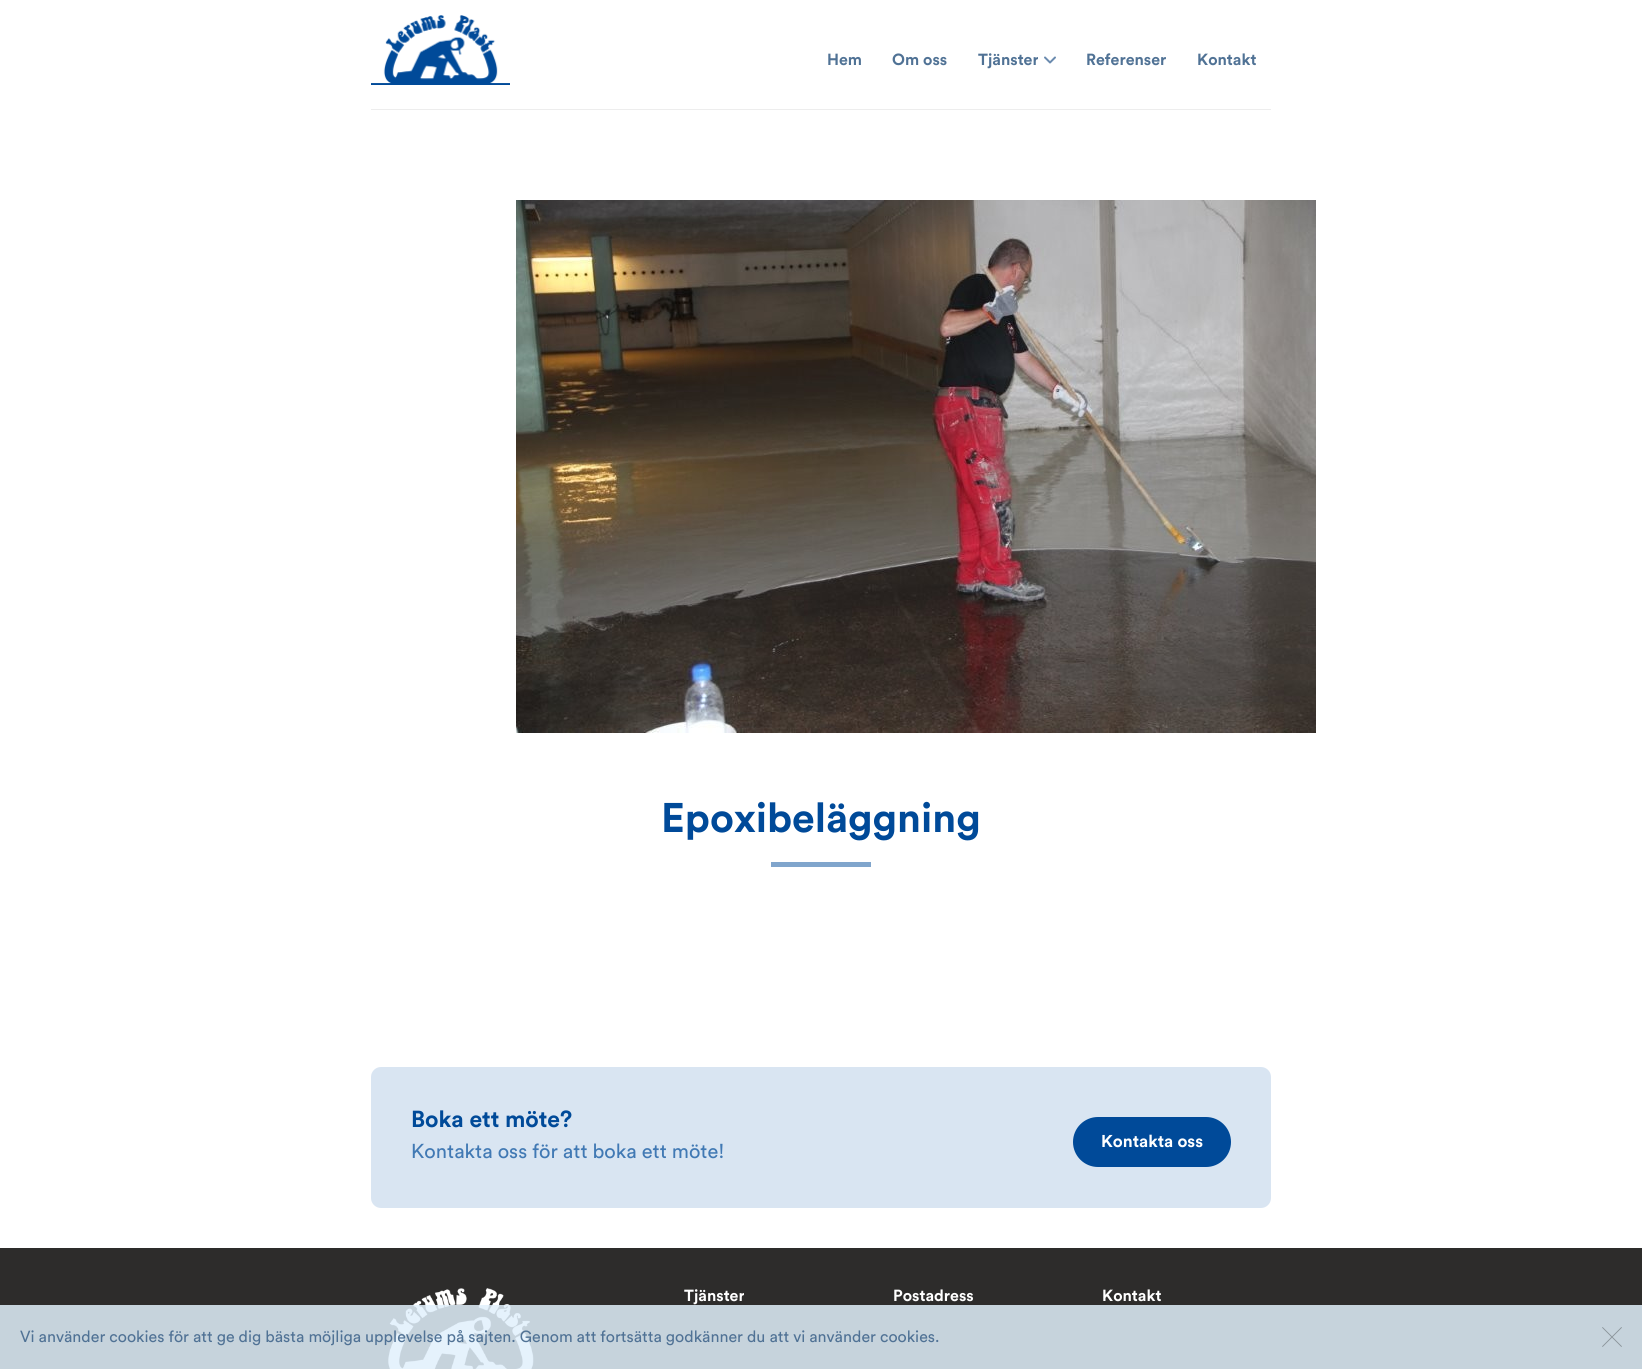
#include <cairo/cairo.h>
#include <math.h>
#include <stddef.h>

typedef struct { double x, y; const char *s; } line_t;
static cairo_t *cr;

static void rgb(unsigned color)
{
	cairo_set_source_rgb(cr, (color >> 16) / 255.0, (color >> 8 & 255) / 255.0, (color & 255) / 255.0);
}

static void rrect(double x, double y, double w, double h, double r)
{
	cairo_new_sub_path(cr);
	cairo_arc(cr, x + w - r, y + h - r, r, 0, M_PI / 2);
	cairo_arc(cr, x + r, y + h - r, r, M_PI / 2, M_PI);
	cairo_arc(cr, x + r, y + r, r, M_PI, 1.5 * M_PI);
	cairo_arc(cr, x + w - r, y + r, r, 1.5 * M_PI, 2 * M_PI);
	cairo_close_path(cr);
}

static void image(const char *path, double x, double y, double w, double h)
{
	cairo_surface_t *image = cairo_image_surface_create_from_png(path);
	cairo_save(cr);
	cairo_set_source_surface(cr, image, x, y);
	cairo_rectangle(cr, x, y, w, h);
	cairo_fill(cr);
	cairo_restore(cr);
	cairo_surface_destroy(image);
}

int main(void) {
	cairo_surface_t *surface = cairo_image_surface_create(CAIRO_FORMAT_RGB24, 1642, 1369);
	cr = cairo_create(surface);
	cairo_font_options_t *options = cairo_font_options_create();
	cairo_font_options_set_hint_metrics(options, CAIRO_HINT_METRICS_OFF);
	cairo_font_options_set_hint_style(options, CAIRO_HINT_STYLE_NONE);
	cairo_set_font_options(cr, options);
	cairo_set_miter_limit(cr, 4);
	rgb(0xffffff);
	cairo_paint(cr);
	image("img/1.png", 371, 15, 139, 70);
	image("img/2.png", 1044, 56, 12, 8);
	rgb(0xededed);
	cairo_rectangle(cr, 371, 109, 900, 1);
	cairo_fill(cr);
	image("img/3.png", 516, 200, 800, 533);
	rgb(0x80a5cc);
	cairo_rectangle(cr, 771, 862, 100, 5);
	cairo_fill(cr);
	rgb(0xd9e5f2);
	rrect(371, 1067, 900, 141, 10);
	cairo_fill(cr);
	rgb(0x004a99);
	rrect(1074, 1118, 156, 48, 24);
	cairo_fill_preserve(cr);
	cairo_stroke(cr);
	rgb(0x2d2c2b);
	cairo_rectangle(cr, 0, 1248, 1642, 121);
	cairo_fill(cr);
	image("img/4.png", 388, 1288, 146, 81);
	cairo_set_source_rgba(cr, 0.878, 0.941, 0.984, 0.85);
	cairo_rectangle(cr, 0, 1305, 1642, 64);
	cairo_fill(cr);
	image("img/5.png", 1602, 1327, 20, 20);
	cairo_select_font_face(cr, "Circular", CAIRO_FONT_SLANT_NORMAL, CAIRO_FONT_WEIGHT_BOLD);
	cairo_set_font_size(cr, 16);
	rgb(0x507295);
	{
		static const line_t items[] = {
			{827, 65, "Hem"},
			{892, 65, "Om oss"},
			{978, 65, "Tjänster"},
			{1086, 65, "Referenser"},
			{1197, 65, "Kontakt"},
		};
		for (size_t i = 0; i < sizeof items / sizeof *items; i++) {
			cairo_move_to(cr, items[i].x, items[i].y);
			cairo_show_text(cr, items[i].s);
		}
	}
	cairo_set_font_size(cr, 41);
	rgb(0x004a99);
	cairo_move_to(cr, 661, 832);
	cairo_show_text(cr, "Epoxibeläggning");
	cairo_set_font_size(cr, 23);
	cairo_move_to(cr, 411, 1127);
	cairo_show_text(cr, "Boka ett möte?");
	cairo_select_font_face(cr, "Circular", CAIRO_FONT_SLANT_NORMAL, CAIRO_FONT_WEIGHT_NORMAL);
	cairo_set_font_size(cr, 20);
	rgb(0x4179b4);
	cairo_move_to(cr, 411, 1158);
	cairo_show_text(cr, "Kontakta oss för att boka ett möte!");
	cairo_select_font_face(cr, "Circular", CAIRO_FONT_SLANT_NORMAL, CAIRO_FONT_WEIGHT_BOLD);
	cairo_set_font_size(cr, 17);
	rgb(0xffffff);
	cairo_move_to(cr, 1101, 1147);
	cairo_show_text(cr, "Kontakta oss");
	cairo_set_font_size(cr, 16);
	{
		static const line_t items[] = {
			{684, 1301, "Tjänster"},
			{893, 1301, "Postadress"},
			{1102, 1301, "Kontakt"},
		};
		for (size_t i = 0; i < sizeof items / sizeof *items; i++) {
			cairo_move_to(cr, items[i].x, items[i].y);
			cairo_show_text(cr, items[i].s);
		}
	}
	cairo_select_font_face(cr, "Circular", CAIRO_FONT_SLANT_NORMAL, CAIRO_FONT_WEIGHT_NORMAL);
	rgb(0x507295);
	cairo_move_to(cr, 20, 1342);
	cairo_show_text(cr, "Vi använder cookies för att ge dig bästa möjliga upplevelse på sajten. Genom att fortsätta godkänner du att vi använder cookies.");
	cairo_surface_write_to_png(surface, "page.png");
	cairo_font_options_destroy(options);
	cairo_destroy(cr);
	cairo_surface_destroy(surface);
	return 0;
}
